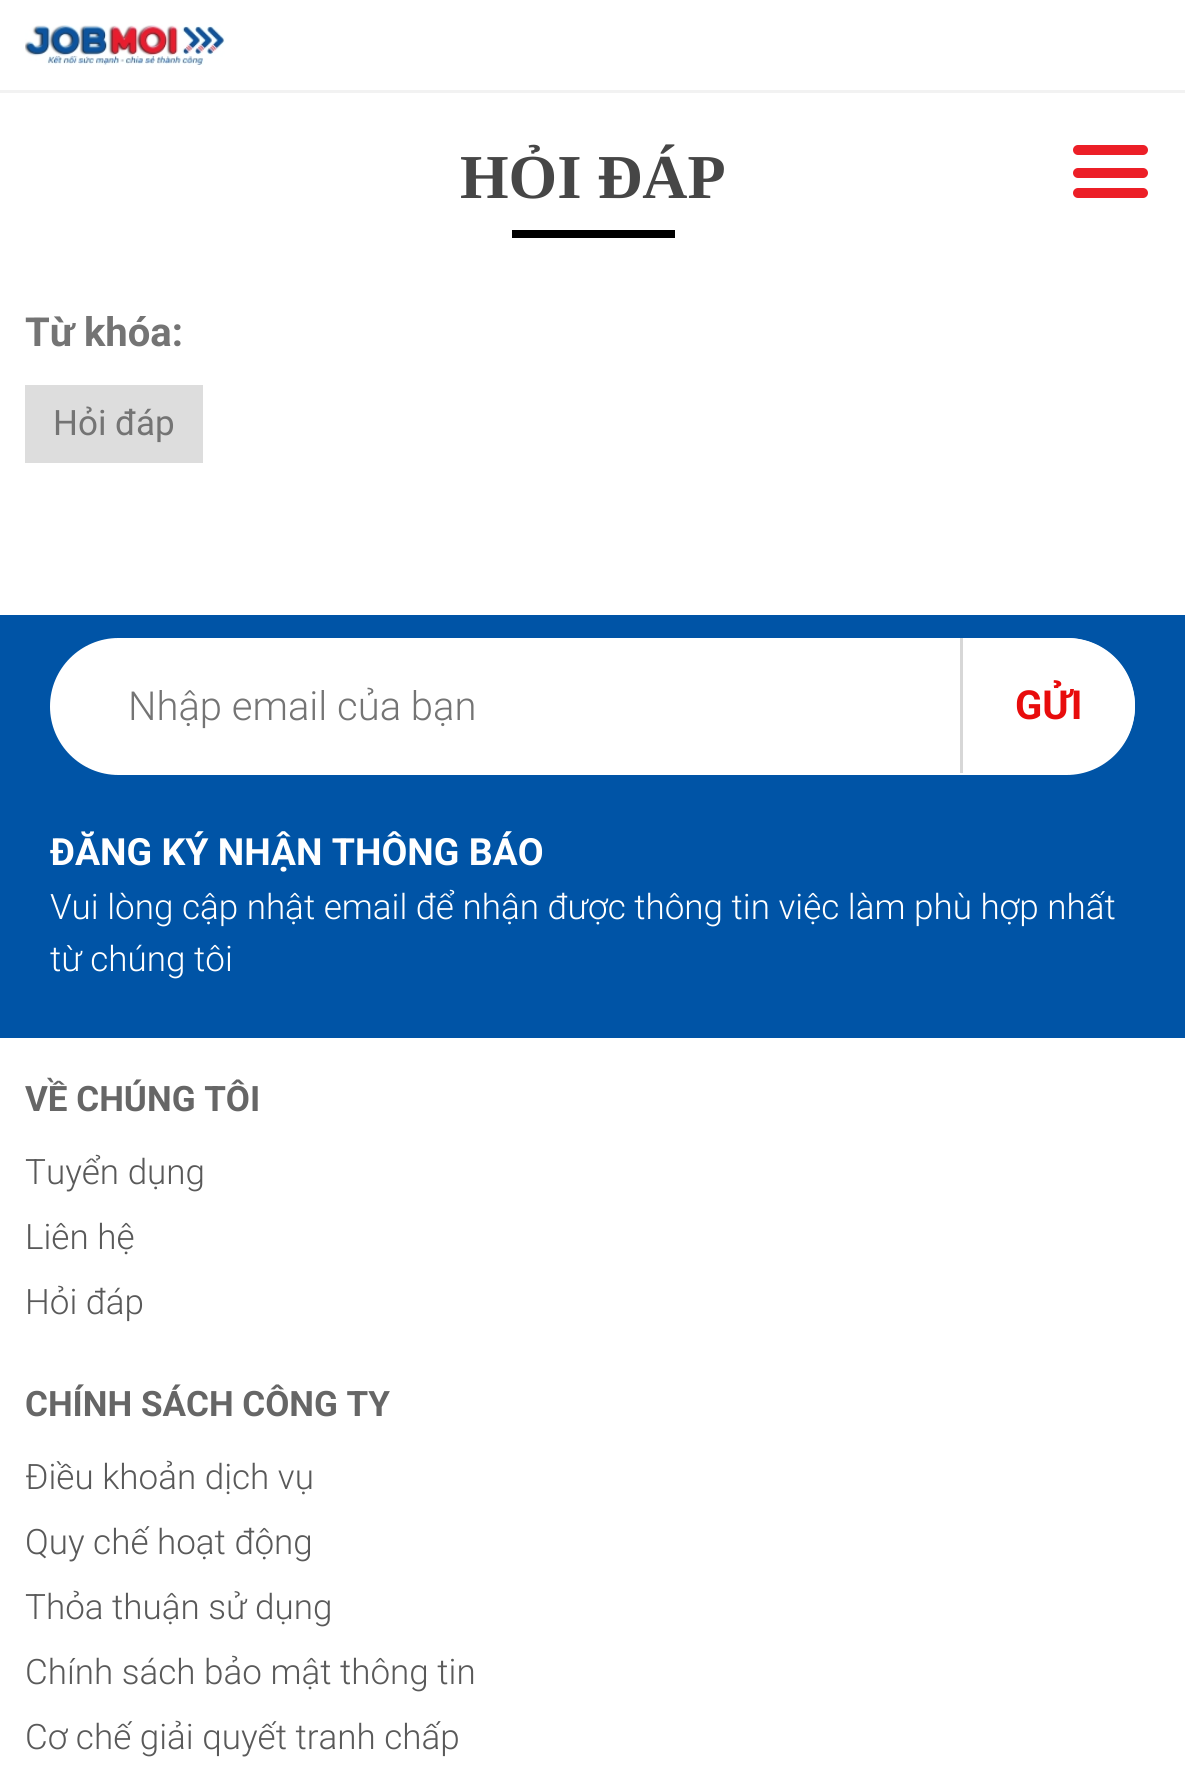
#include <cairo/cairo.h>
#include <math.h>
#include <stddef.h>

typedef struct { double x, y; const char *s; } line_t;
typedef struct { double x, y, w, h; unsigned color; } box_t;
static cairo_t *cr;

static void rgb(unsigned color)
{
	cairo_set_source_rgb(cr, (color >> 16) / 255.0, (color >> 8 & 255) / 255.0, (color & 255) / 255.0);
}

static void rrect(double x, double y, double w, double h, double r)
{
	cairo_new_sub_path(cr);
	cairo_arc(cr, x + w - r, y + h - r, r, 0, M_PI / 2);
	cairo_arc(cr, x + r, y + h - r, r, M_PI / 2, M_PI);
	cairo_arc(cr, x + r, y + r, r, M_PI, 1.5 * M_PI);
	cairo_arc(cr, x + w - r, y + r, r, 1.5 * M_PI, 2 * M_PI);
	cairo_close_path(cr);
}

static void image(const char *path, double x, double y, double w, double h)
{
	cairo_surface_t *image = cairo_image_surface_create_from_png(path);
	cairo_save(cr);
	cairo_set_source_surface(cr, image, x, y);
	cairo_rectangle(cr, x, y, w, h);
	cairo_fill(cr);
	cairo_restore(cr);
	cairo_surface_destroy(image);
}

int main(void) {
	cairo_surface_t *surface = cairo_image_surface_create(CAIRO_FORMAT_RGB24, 1185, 1769);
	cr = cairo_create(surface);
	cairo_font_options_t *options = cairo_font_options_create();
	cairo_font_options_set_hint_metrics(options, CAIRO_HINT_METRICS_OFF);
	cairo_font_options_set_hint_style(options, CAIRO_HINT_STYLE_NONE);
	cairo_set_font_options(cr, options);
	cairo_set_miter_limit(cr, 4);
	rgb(0xffffff);
	cairo_paint(cr);
	rgb(0xf2f2f2);
	cairo_rectangle(cr, 0, 90, 1185, 3);
	cairo_fill(cr);
	image("img/1.png", 25, 25, 200, 40);
	rgb(0xec1f27);
	rrect(1073, 145, 75, 10, 5);
	cairo_fill(cr);
	rrect(1073, 168, 75, 10, 5);
	cairo_fill(cr);
	rrect(1073, 188, 75, 10, 5);
	cairo_fill(cr);
	{
		static const box_t items[] = {
			{512, 230, 163, 8, 0x000000},
			{25, 385, 178, 78, 0xdddddd},
			{0, 615, 1185, 423, 0x0054a6},
		};
		for (size_t i = 0; i < sizeof items / sizeof *items; i++) {
			rgb(items[i].color);
			cairo_rectangle(cr, items[i].x, items[i].y, items[i].w, items[i].h);
			cairo_fill(cr);
		}
	}
	rgb(0xffffff);
	rrect(51.5, 639.5, 1082, 134, 67);
	cairo_fill_preserve(cr);
	cairo_set_line_width(cr, 3);
	cairo_stroke(cr);
	cairo_new_path(cr);
	cairo_move_to(cr, 960, 638);
	cairo_line_to(cr, 1067.5, 638);
	cairo_curve_to(cr, 1105, 638, 1135, 668, 1135, 705.5);
	cairo_curve_to(cr, 1135, 743, 1105, 773, 1067.5, 773);
	cairo_line_to(cr, 960, 773);
	cairo_close_path(cr);
	cairo_fill(cr);
	rgb(0xd7d7d7);
	cairo_rectangle(cr, 960, 638, 3, 135);
	cairo_fill(cr);
	cairo_select_font_face(cr, "Liberation Serif", CAIRO_FONT_SLANT_NORMAL, CAIRO_FONT_WEIGHT_BOLD);
	cairo_set_font_size(cr, 62.5);
	rgb(0x464646);
	cairo_move_to(cr, 460, 198);
	cairo_show_text(cr, "HỎI ĐÁP");
	cairo_select_font_face(cr, "Roboto", CAIRO_FONT_SLANT_NORMAL, CAIRO_FONT_WEIGHT_BOLD);
	cairo_set_font_size(cr, 40);
	rgb(0x747474);
	cairo_move_to(cr, 25, 346);
	cairo_show_text(cr, "Từ khóa:");
	cairo_select_font_face(cr, "Roboto", CAIRO_FONT_SLANT_NORMAL, CAIRO_FONT_WEIGHT_NORMAL);
	cairo_set_font_size(cr, 35);
	cairo_move_to(cr, 53, 435);
	cairo_show_text(cr, "Hỏi đáp");
	cairo_select_font_face(cr, "Roboto Light", CAIRO_FONT_SLANT_NORMAL, CAIRO_FONT_WEIGHT_NORMAL);
	cairo_set_font_size(cr, 40);
	cairo_move_to(cr, 128, 720);
	cairo_show_text(cr, "Nhập email của bạn");
	cairo_select_font_face(cr, "Roboto", CAIRO_FONT_SLANT_NORMAL, CAIRO_FONT_WEIGHT_BOLD);
	rgb(0xe80c0c);
	cairo_move_to(cr, 1015, 719);
	cairo_show_text(cr, "GỬI");
	cairo_set_font_size(cr, 37.5);
	rgb(0xffffff);
	cairo_move_to(cr, 50, 865);
	cairo_show_text(cr, "ĐĂNG KÝ NHẬN THÔNG BÁO");
	cairo_select_font_face(cr, "Roboto Light", CAIRO_FONT_SLANT_NORMAL, CAIRO_FONT_WEIGHT_NORMAL);
	cairo_set_font_size(cr, 35);
	cairo_move_to(cr, 50, 919);
	cairo_show_text(cr, "Vui lòng cập nhật email để nhận được thông tin việc làm phù hợp nhất");
	cairo_move_to(cr, 50, 971);
	cairo_show_text(cr, "từ chúng tôi");
	cairo_select_font_face(cr, "Roboto", CAIRO_FONT_SLANT_NORMAL, CAIRO_FONT_WEIGHT_BOLD);
	rgb(0x666666);
	cairo_move_to(cr, 25, 1111);
	cairo_show_text(cr, "VỀ CHÚNG TÔI");
	cairo_select_font_face(cr, "Roboto Light", CAIRO_FONT_SLANT_NORMAL, CAIRO_FONT_WEIGHT_NORMAL);
	rgb(0x595959);
	{
		static const line_t items[] = {
			{25, 1184, "Tuyển dụng"},
			{25, 1249, "Liên hệ"},
			{25, 1314, "Hỏi đáp"},
		};
		for (size_t i = 0; i < sizeof items / sizeof *items; i++) {
			cairo_move_to(cr, items[i].x, items[i].y);
			cairo_show_text(cr, items[i].s);
		}
	}
	cairo_select_font_face(cr, "Roboto", CAIRO_FONT_SLANT_NORMAL, CAIRO_FONT_WEIGHT_BOLD);
	rgb(0x666666);
	cairo_move_to(cr, 25, 1416);
	cairo_show_text(cr, "CHÍNH SÁCH CÔNG TY");
	cairo_select_font_face(cr, "Roboto Light", CAIRO_FONT_SLANT_NORMAL, CAIRO_FONT_WEIGHT_NORMAL);
	rgb(0x595959);
	{
		static const line_t items[] = {
			{25, 1489, "Điều khoản dịch vụ"},
			{25, 1554, "Quy chế hoạt động"},
			{25, 1619, "Thỏa thuận sử dụng"},
			{25, 1684, "Chính sách bảo mật thông tin"},
			{25, 1749, "Cơ chế giải quyết tranh chấp"},
		};
		for (size_t i = 0; i < sizeof items / sizeof *items; i++) {
			cairo_move_to(cr, items[i].x, items[i].y);
			cairo_show_text(cr, items[i].s);
		}
	}
	cairo_surface_write_to_png(surface, "page.png");
	cairo_font_options_destroy(options);
	cairo_destroy(cr);
	cairo_surface_destroy(surface);
	return 0;
}
